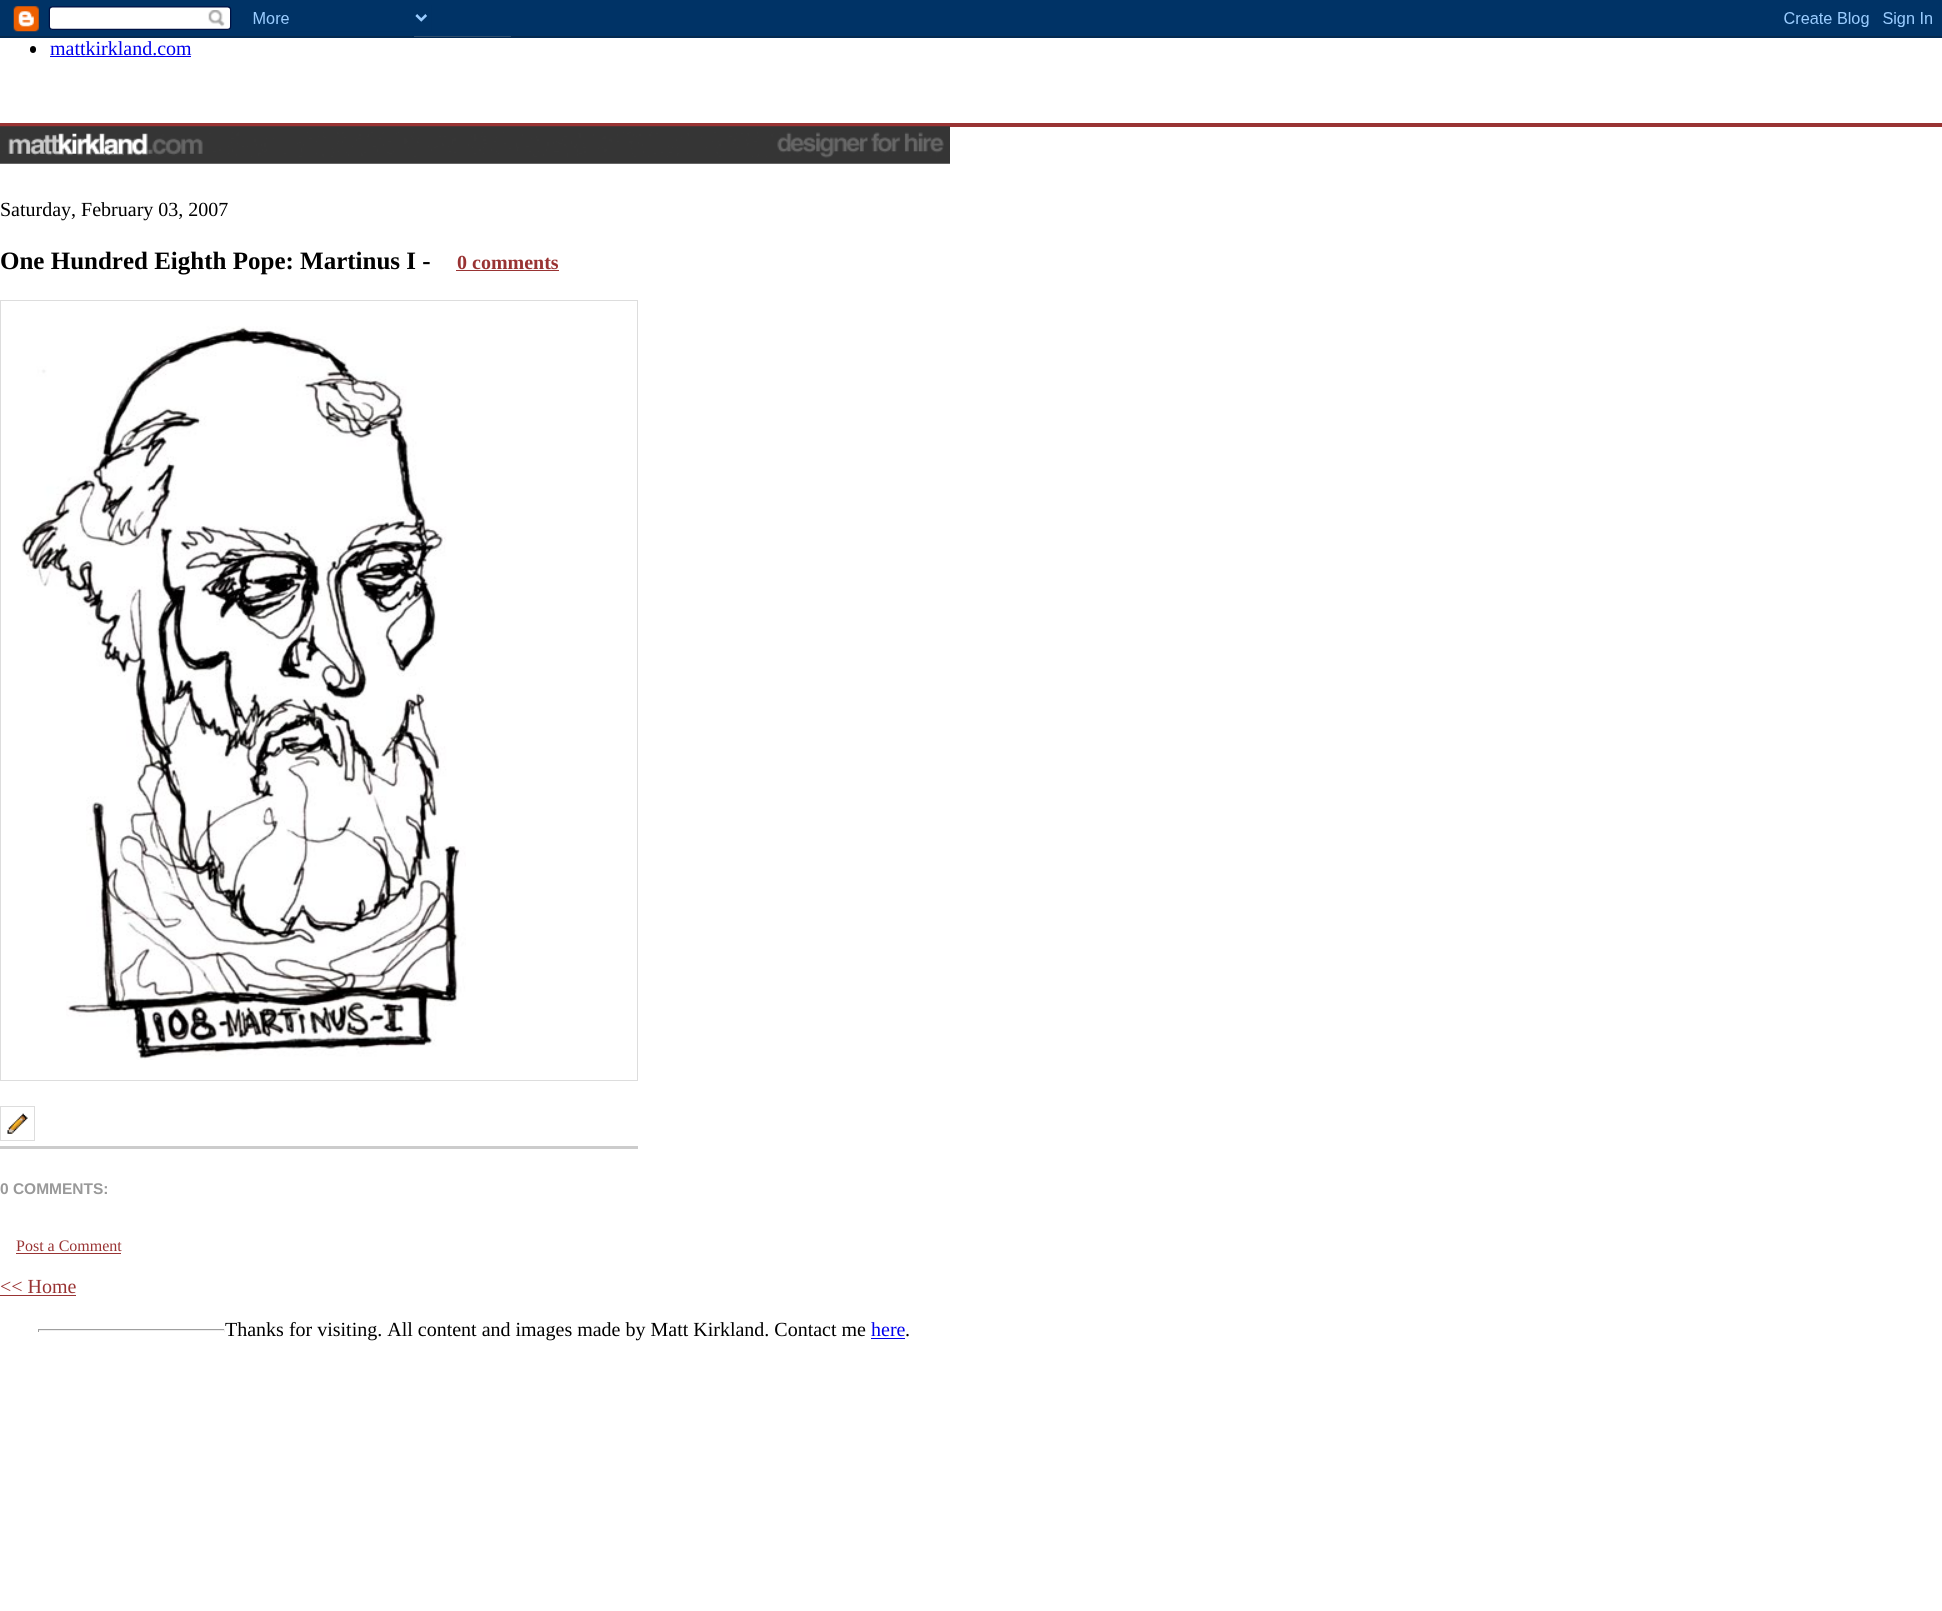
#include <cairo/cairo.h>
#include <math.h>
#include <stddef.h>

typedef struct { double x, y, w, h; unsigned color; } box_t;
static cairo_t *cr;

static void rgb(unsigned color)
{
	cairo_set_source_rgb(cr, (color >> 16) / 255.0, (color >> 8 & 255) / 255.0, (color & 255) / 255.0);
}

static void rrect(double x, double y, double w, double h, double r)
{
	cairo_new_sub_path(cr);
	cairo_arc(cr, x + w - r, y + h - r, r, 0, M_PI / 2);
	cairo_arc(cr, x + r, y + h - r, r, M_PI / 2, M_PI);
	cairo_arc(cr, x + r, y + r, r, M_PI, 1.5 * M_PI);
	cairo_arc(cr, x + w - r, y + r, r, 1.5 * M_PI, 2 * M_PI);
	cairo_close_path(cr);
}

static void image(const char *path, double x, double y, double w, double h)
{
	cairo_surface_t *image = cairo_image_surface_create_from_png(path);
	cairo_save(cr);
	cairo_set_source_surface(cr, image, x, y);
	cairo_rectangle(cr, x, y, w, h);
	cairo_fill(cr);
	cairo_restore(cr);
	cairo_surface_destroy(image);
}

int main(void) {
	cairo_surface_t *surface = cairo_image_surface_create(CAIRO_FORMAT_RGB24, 1942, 1611);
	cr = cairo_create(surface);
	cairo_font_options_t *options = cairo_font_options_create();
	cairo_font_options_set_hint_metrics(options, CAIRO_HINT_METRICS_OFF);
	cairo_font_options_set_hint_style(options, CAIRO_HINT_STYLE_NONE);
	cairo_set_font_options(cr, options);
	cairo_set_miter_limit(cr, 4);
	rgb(0xffffff);
	cairo_paint(cr);
	image("img/1.png", 0, 0, 1942, 38);
	rgb(0x000000);
	rrect(30, 46, 6, 7, 3);
	cairo_fill(cr);
	rgb(0x0000ee);
	cairo_rectangle(cr, 50, 56, 141, 1);
	cairo_fill(cr);
	rgb(0x993333);
	cairo_rectangle(cr, 0, 123, 1942, 4);
	cairo_fill(cr);
	image("img/2.png", 0, 126, 950, 38);
	rgb(0xcccccc);
	cairo_rectangle(cr, 0, 1146, 638, 3);
	cairo_fill(cr);
	rgb(0x993333);
	cairo_rectangle(cr, 456, 270, 103, 1);
	cairo_fill(cr);
	cairo_rectangle(cr, 0.5, 300.5, 637, 780);
	rgb(0xdddddd);
	cairo_set_line_width(cr, 1);
	cairo_stroke(cr);
	image("img/3.png", 21, 326, 445, 734);
	cairo_rectangle(cr, 0.5, 1106.5, 34, 34);
	cairo_stroke(cr);
	image("img/4.png", 7, 1113, 21, 21);
	{
		static const box_t items[] = {
			{16, 1253, 105, 1, 0x993333},
			{0, 1295, 76, 1, 0x993333},
			{38, 1329, 187, 1, 0x9f9f9f},
			{224, 1329, 1, 3, 0xeeeeee},
			{38, 1330, 187, 1, 0xeeeeee},
			{38, 1329, 1, 3, 0x9f9f9f},
			{871, 1338, 34, 1, 0x0000ee},
		};
		for (size_t i = 0; i < sizeof items / sizeof *items; i++) {
			rgb(items[i].color);
			cairo_rectangle(cr, items[i].x, items[i].y, items[i].w, items[i].h);
			cairo_fill(cr);
		}
	}
	cairo_select_font_face(cr, "Liberation Serif", CAIRO_FONT_SLANT_NORMAL, CAIRO_FONT_WEIGHT_NORMAL);
	cairo_set_font_size(cr, 20);
	cairo_move_to(cr, 50, 55);
	cairo_show_text(cr, "mattkirkland.com");
	rgb(0x000000);
	cairo_move_to(cr, 0, 216);
	cairo_show_text(cr, "Saturday, February 03, 2007");
	cairo_select_font_face(cr, "Liberation Serif", CAIRO_FONT_SLANT_NORMAL, CAIRO_FONT_WEIGHT_BOLD);
	cairo_set_font_size(cr, 25);
	cairo_move_to(cr, 0, 269);
	cairo_show_text(cr, "One Hundred Eighth Pope: Martinus I -");
	cairo_set_font_size(cr, 20);
	rgb(0x993333);
	cairo_move_to(cr, 457, 269);
	cairo_show_text(cr, "0 comments");
	cairo_select_font_face(cr, "Liberation Sans", CAIRO_FONT_SLANT_NORMAL, CAIRO_FONT_WEIGHT_BOLD);
	cairo_set_font_size(cr, 15.5);
	rgb(0x999999);
	cairo_move_to(cr, 0, 1194);
	cairo_show_text(cr, "0 COMMENTS:");
	cairo_select_font_face(cr, "Liberation Serif", CAIRO_FONT_SLANT_NORMAL, CAIRO_FONT_WEIGHT_NORMAL);
	cairo_set_font_size(cr, 16);
	rgb(0x993333);
	cairo_move_to(cr, 16, 1251);
	cairo_show_text(cr, "Post a Comment");
	cairo_set_font_size(cr, 20);
	cairo_move_to(cr, 0, 1293);
	cairo_show_text(cr, "<< Home");
	rgb(0x000000);
	cairo_move_to(cr, 225, 1336);
	cairo_show_text(cr, "Thanks for visiting. All content and images made by Matt Kirkland. Contact me");
	rgb(0x0000ee);
	cairo_move_to(cr, 871, 1336);
	cairo_show_text(cr, "here");
	rgb(0x000000);
	cairo_move_to(cr, 905, 1336);
	cairo_show_text(cr, ".");
	cairo_surface_write_to_png(surface, "page.png");
	cairo_font_options_destroy(options);
	cairo_destroy(cr);
	cairo_surface_destroy(surface);
	return 0;
}
